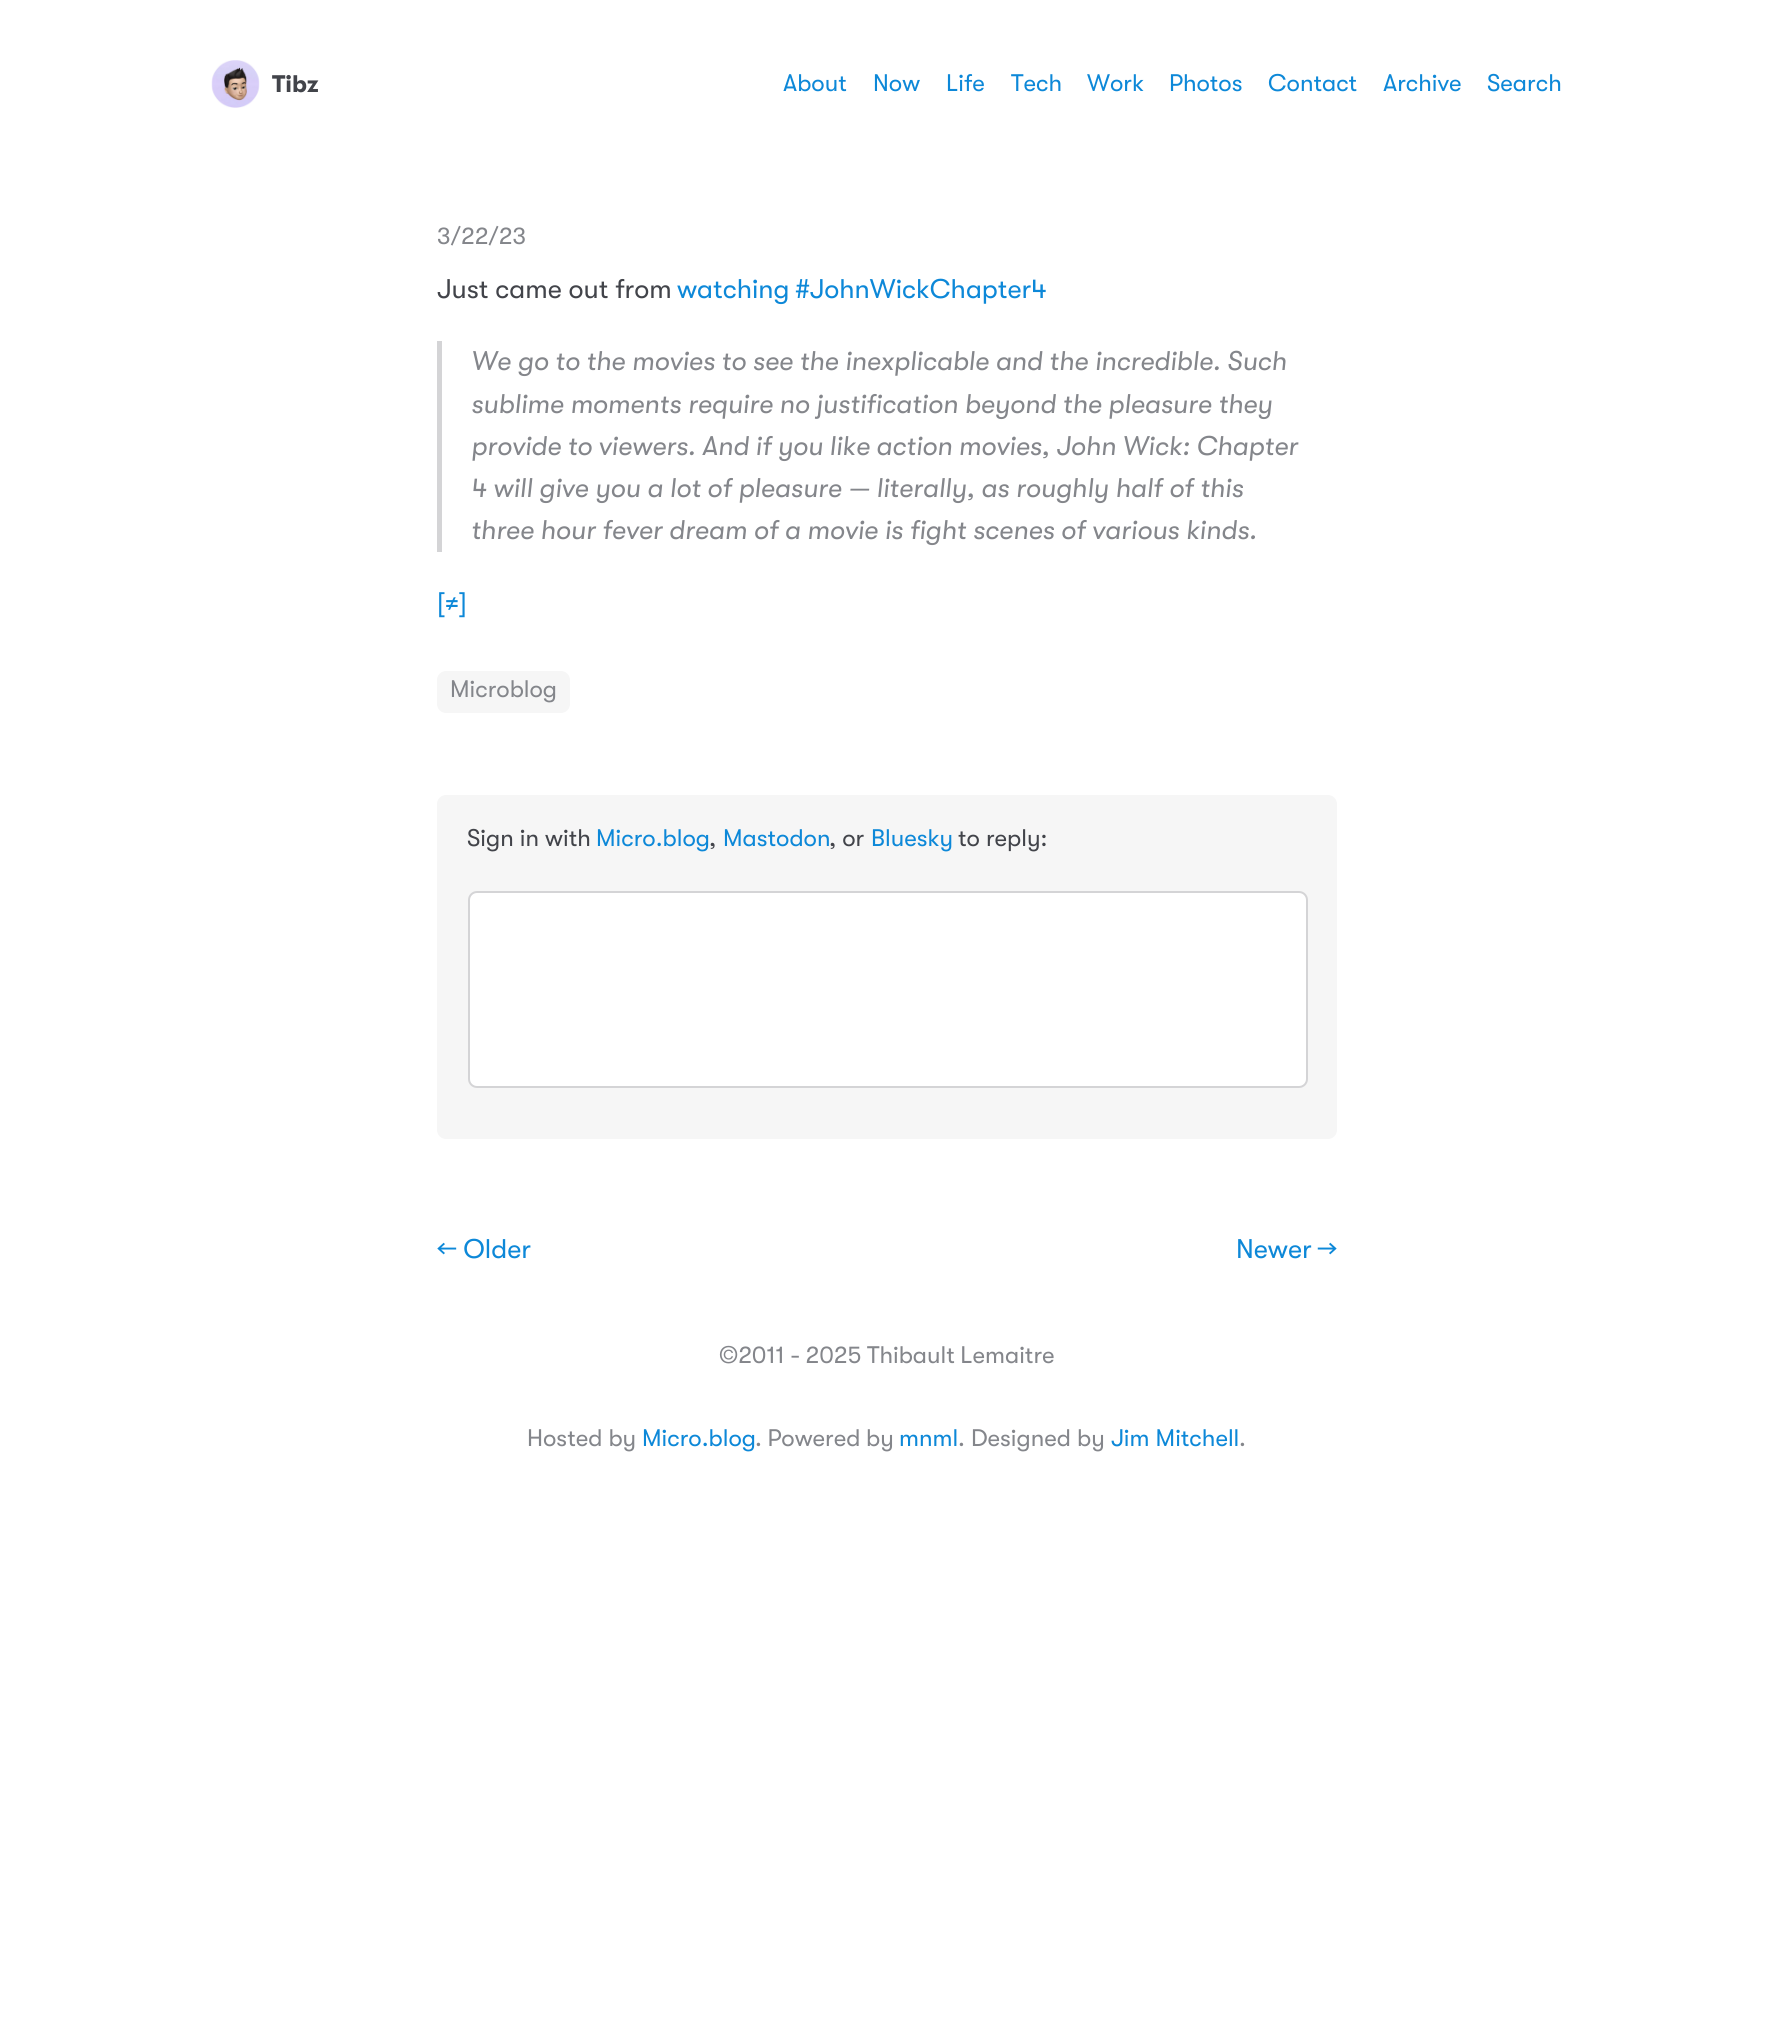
#include <cairo/cairo.h>
#include <math.h>
#include <stddef.h>

typedef struct { double x, y; const char *s; } line_t;
static cairo_t *cr;

static void rgb(unsigned color)
{
	cairo_set_source_rgb(cr, (color >> 16) / 255.0, (color >> 8 & 255) / 255.0, (color & 255) / 255.0);
}

static void tracked(double x, double y, const char *s, double letter, double word)
{
	cairo_move_to(cr, x, y);
	while (*s) {
		char ch[5] = {0};
		int n = 0;
		do ch[n++] = *s++; while ((*s & 0xC0) == 0x80);
		cairo_show_text(cr, ch);
		cairo_rel_move_to(cr, letter + word * (*ch == ' '), 0);
	}
}

static void rrect(double x, double y, double w, double h, double r)
{
	cairo_new_sub_path(cr);
	cairo_arc(cr, x + w - r, y + h - r, r, 0, M_PI / 2);
	cairo_arc(cr, x + r, y + h - r, r, M_PI / 2, M_PI);
	cairo_arc(cr, x + r, y + r, r, M_PI, 1.5 * M_PI);
	cairo_arc(cr, x + w - r, y + r, r, 1.5 * M_PI, 2 * M_PI);
	cairo_close_path(cr);
}

static void image(const char *path, double x, double y, double w, double h)
{
	cairo_surface_t *image = cairo_image_surface_create_from_png(path);
	cairo_save(cr);
	cairo_set_source_surface(cr, image, x, y);
	cairo_rectangle(cr, x, y, w, h);
	cairo_fill(cr);
	cairo_restore(cr);
	cairo_surface_destroy(image);
}

int main(void) {
	cairo_surface_t *surface = cairo_image_surface_create(CAIRO_FORMAT_RGB24, 1773, 2022);
	cr = cairo_create(surface);
	cairo_font_options_t *options = cairo_font_options_create();
	cairo_font_options_set_hint_metrics(options, CAIRO_HINT_METRICS_OFF);
	cairo_font_options_set_hint_style(options, CAIRO_HINT_STYLE_NONE);
	cairo_set_font_options(cr, options);
	cairo_set_miter_limit(cr, 4);
	rgb(0xffffff);
	cairo_paint(cr);
	image("img/1.png", 211, 60, 49, 48);
	rgb(0xd4d4d6);
	cairo_rectangle(cr, 437, 341, 5, 211);
	cairo_fill(cr);
	rgb(0xf6f6f6);
	rrect(437, 671, 133, 42, 9);
	cairo_fill(cr);
	rrect(437, 795, 900, 344, 9);
	cairo_fill(cr);
	rgb(0xffffff);
	rrect(469, 892, 838, 195, 8);
	cairo_fill_preserve(cr);
	rgb(0xd4d4d6);
	cairo_stroke(cr);
	cairo_select_font_face(cr, "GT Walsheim", CAIRO_FONT_SLANT_NORMAL, CAIRO_FONT_WEIGHT_BOLD);
	cairo_set_font_size(cr, 24);
	rgb(0x42444a);
	cairo_move_to(cr, 272, 92);
	cairo_show_text(cr, "Tibz");
	cairo_select_font_face(cr, "GT Walsheim", CAIRO_FONT_SLANT_NORMAL, CAIRO_FONT_WEIGHT_NORMAL);
	rgb(0x0d88d8);
	{
		static const line_t items[] = {
			{783, 91, "About"},
			{873, 91, "Now"},
			{946, 91, "Life"},
			{1011, 91, "Tech"},
			{1087, 91, "Work"},
			{1169, 91, "Photos"},
			{1268, 91, "Contact"},
			{1383, 91, "Archive"},
			{1487, 91, "Search"},
		};
		for (size_t i = 0; i < sizeof items / sizeof *items; i++) {
			cairo_move_to(cr, items[i].x, items[i].y);
			cairo_show_text(cr, items[i].s);
		}
	}
	rgb(0x84868b);
	cairo_move_to(cr, 437, 244);
	cairo_show_text(cr, "3/22/23");
	cairo_set_font_size(cr, 27);
	rgb(0x42444a);
	cairo_move_to(cr, 437, 298);
	cairo_show_text(cr, "Just came out from");
	rgb(0x0d88d8);
	tracked(677, 298, "watching #JohnWickChapter4", 0, -1);
	cairo_select_font_face(cr, "GT Walsheim", CAIRO_FONT_SLANT_ITALIC, CAIRO_FONT_WEIGHT_NORMAL);
	rgb(0x84868b);
	tracked(471, 370, "We go to the movies to see the inexplicable and the incredible. Such", 0, -0.25);
	tracked(471, 413, "sublime moments require no justification beyond the pleasure they", 0, -0.25);
	tracked(471, 455, "provide to viewers. And if you like action movies, John Wick: Chapter", 0, -0.5);
	tracked(471, 497, "4 will give you a lot of pleasure — literally, as roughly half of this", 0, -0.25);
	tracked(471, 539, "three hour fever dream of a movie is fight scenes of various kinds.", 0, -0.3);
	cairo_select_font_face(cr, "GT Walsheim", CAIRO_FONT_SLANT_NORMAL, CAIRO_FONT_WEIGHT_NORMAL);
	rgb(0x0d88d8);
	cairo_move_to(cr, 437, 612);
	cairo_show_text(cr, "[≠]");
	cairo_set_font_size(cr, 24);
	rgb(0x84868b);
	cairo_move_to(cr, 450, 697);
	cairo_show_text(cr, "Microblog");
	rgb(0x42444a);
	cairo_move_to(cr, 467, 846);
	cairo_show_text(cr, "Sign in with");
	rgb(0x0d88d8);
	cairo_move_to(cr, 596, 846);
	cairo_show_text(cr, "Micro.blog");
	rgb(0x42444a);
	cairo_move_to(cr, 709, 846);
	cairo_show_text(cr, ",");
	rgb(0x0d88d8);
	cairo_move_to(cr, 723, 846);
	cairo_show_text(cr, "Mastodon");
	rgb(0x42444a);
	cairo_move_to(cr, 829, 846);
	cairo_show_text(cr, ", or");
	rgb(0x0d88d8);
	cairo_move_to(cr, 871, 846);
	cairo_show_text(cr, "Bluesky");
	rgb(0x42444a);
	cairo_move_to(cr, 958, 846);
	cairo_show_text(cr, "to reply:");
	cairo_set_font_size(cr, 27);
	rgb(0x0d88d8);
	cairo_move_to(cr, 437, 1258);
	cairo_show_text(cr, "← Older");
	tracked(1236, 1258, "Newer →", 0, -1);
	cairo_set_font_size(cr, 24);
	rgb(0x84868b);
	tracked(719, 1363, "©2011 - 2025 Thibault Lemaitre", 0, -0.5);
	cairo_move_to(cr, 527, 1446);
	cairo_show_text(cr, "Hosted by");
	rgb(0x0d88d8);
	cairo_move_to(cr, 642, 1446);
	cairo_show_text(cr, "Micro.blog");
	rgb(0x84868b);
	tracked(755, 1446, ". Powered by", 0, -0.5);
	rgb(0x0d88d8);
	cairo_move_to(cr, 899, 1446);
	cairo_show_text(cr, "mnml");
	rgb(0x84868b);
	cairo_move_to(cr, 958, 1446);
	cairo_show_text(cr, ". Designed by");
	rgb(0x0d88d8);
	cairo_move_to(cr, 1111, 1446);
	cairo_show_text(cr, "Jim Mitchell");
	rgb(0x84868b);
	cairo_move_to(cr, 1239, 1446);
	cairo_show_text(cr, ".");
	cairo_surface_write_to_png(surface, "page.png");
	cairo_font_options_destroy(options);
	cairo_destroy(cr);
	cairo_surface_destroy(surface);
	return 0;
}
